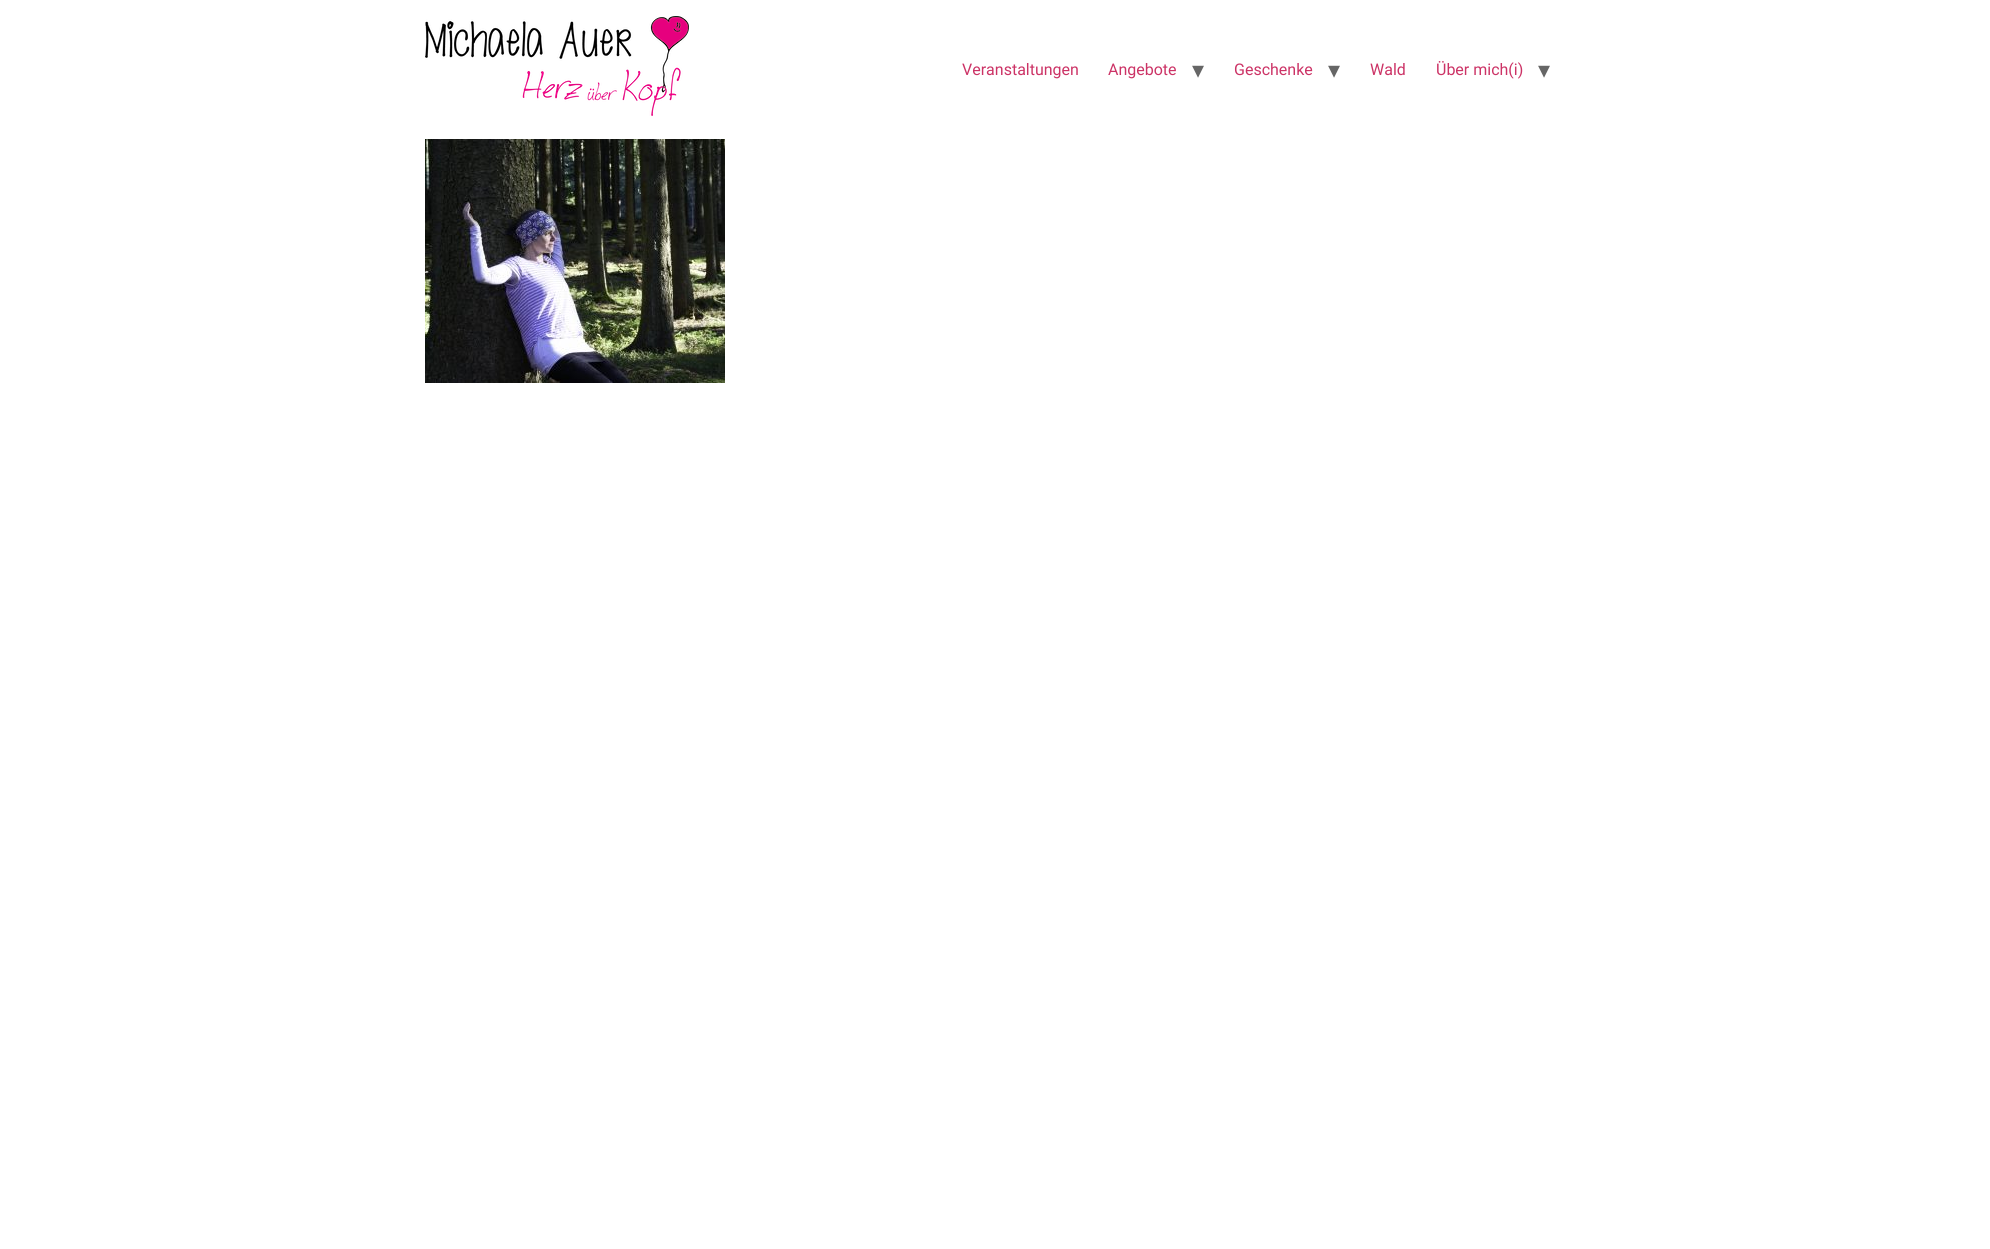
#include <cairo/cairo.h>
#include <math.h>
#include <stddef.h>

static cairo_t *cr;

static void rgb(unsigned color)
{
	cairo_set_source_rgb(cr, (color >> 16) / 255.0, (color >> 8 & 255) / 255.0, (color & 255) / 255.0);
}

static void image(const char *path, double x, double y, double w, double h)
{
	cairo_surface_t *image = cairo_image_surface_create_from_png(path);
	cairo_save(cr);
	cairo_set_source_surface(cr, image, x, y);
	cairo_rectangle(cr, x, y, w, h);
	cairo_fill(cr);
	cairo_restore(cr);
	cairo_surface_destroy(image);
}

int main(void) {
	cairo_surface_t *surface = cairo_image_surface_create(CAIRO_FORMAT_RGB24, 1990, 1249);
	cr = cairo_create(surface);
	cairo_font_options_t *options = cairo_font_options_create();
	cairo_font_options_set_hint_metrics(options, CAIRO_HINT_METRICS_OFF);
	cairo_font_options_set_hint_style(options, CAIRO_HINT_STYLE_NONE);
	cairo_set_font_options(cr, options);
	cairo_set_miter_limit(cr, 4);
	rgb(0xffffff);
	cairo_paint(cr);
	image("img/1.png", 425, 16, 264, 100);
	image("img/2.png", 425, 139, 300, 244);
	cairo_select_font_face(cr, "Roboto", CAIRO_FONT_SLANT_NORMAL, CAIRO_FONT_WEIGHT_NORMAL);
	cairo_set_font_size(cr, 16);
	rgb(0xcc3366);
	cairo_move_to(cr, 962, 75);
	cairo_show_text(cr, "Veranstaltungen");
	cairo_move_to(cr, 1108, 75);
	cairo_show_text(cr, "Angebote");
	cairo_select_font_face(cr, "DejaVu Sans", CAIRO_FONT_SLANT_NORMAL, CAIRO_FONT_WEIGHT_NORMAL);
	cairo_set_font_size(cr, 24);
	rgb(0x666666);
	cairo_move_to(cr, 1192, 78);
	cairo_show_text(cr, "▾");
	cairo_select_font_face(cr, "Roboto", CAIRO_FONT_SLANT_NORMAL, CAIRO_FONT_WEIGHT_NORMAL);
	cairo_set_font_size(cr, 16);
	rgb(0xcc3366);
	cairo_move_to(cr, 1234, 75);
	cairo_show_text(cr, "Geschenke");
	cairo_select_font_face(cr, "DejaVu Sans", CAIRO_FONT_SLANT_NORMAL, CAIRO_FONT_WEIGHT_NORMAL);
	cairo_set_font_size(cr, 24);
	rgb(0x666666);
	cairo_move_to(cr, 1328, 78);
	cairo_show_text(cr, "▾");
	cairo_select_font_face(cr, "Roboto", CAIRO_FONT_SLANT_NORMAL, CAIRO_FONT_WEIGHT_NORMAL);
	cairo_set_font_size(cr, 16);
	rgb(0xcc3366);
	cairo_move_to(cr, 1370, 75);
	cairo_show_text(cr, "Wald");
	cairo_move_to(cr, 1436, 75);
	cairo_show_text(cr, "Über mich(i)");
	cairo_select_font_face(cr, "DejaVu Sans", CAIRO_FONT_SLANT_NORMAL, CAIRO_FONT_WEIGHT_NORMAL);
	cairo_set_font_size(cr, 24);
	rgb(0x666666);
	cairo_move_to(cr, 1538, 78);
	cairo_show_text(cr, "▾");
	cairo_surface_write_to_png(surface, "page.png");
	cairo_font_options_destroy(options);
	cairo_destroy(cr);
	cairo_surface_destroy(surface);
	return 0;
}
